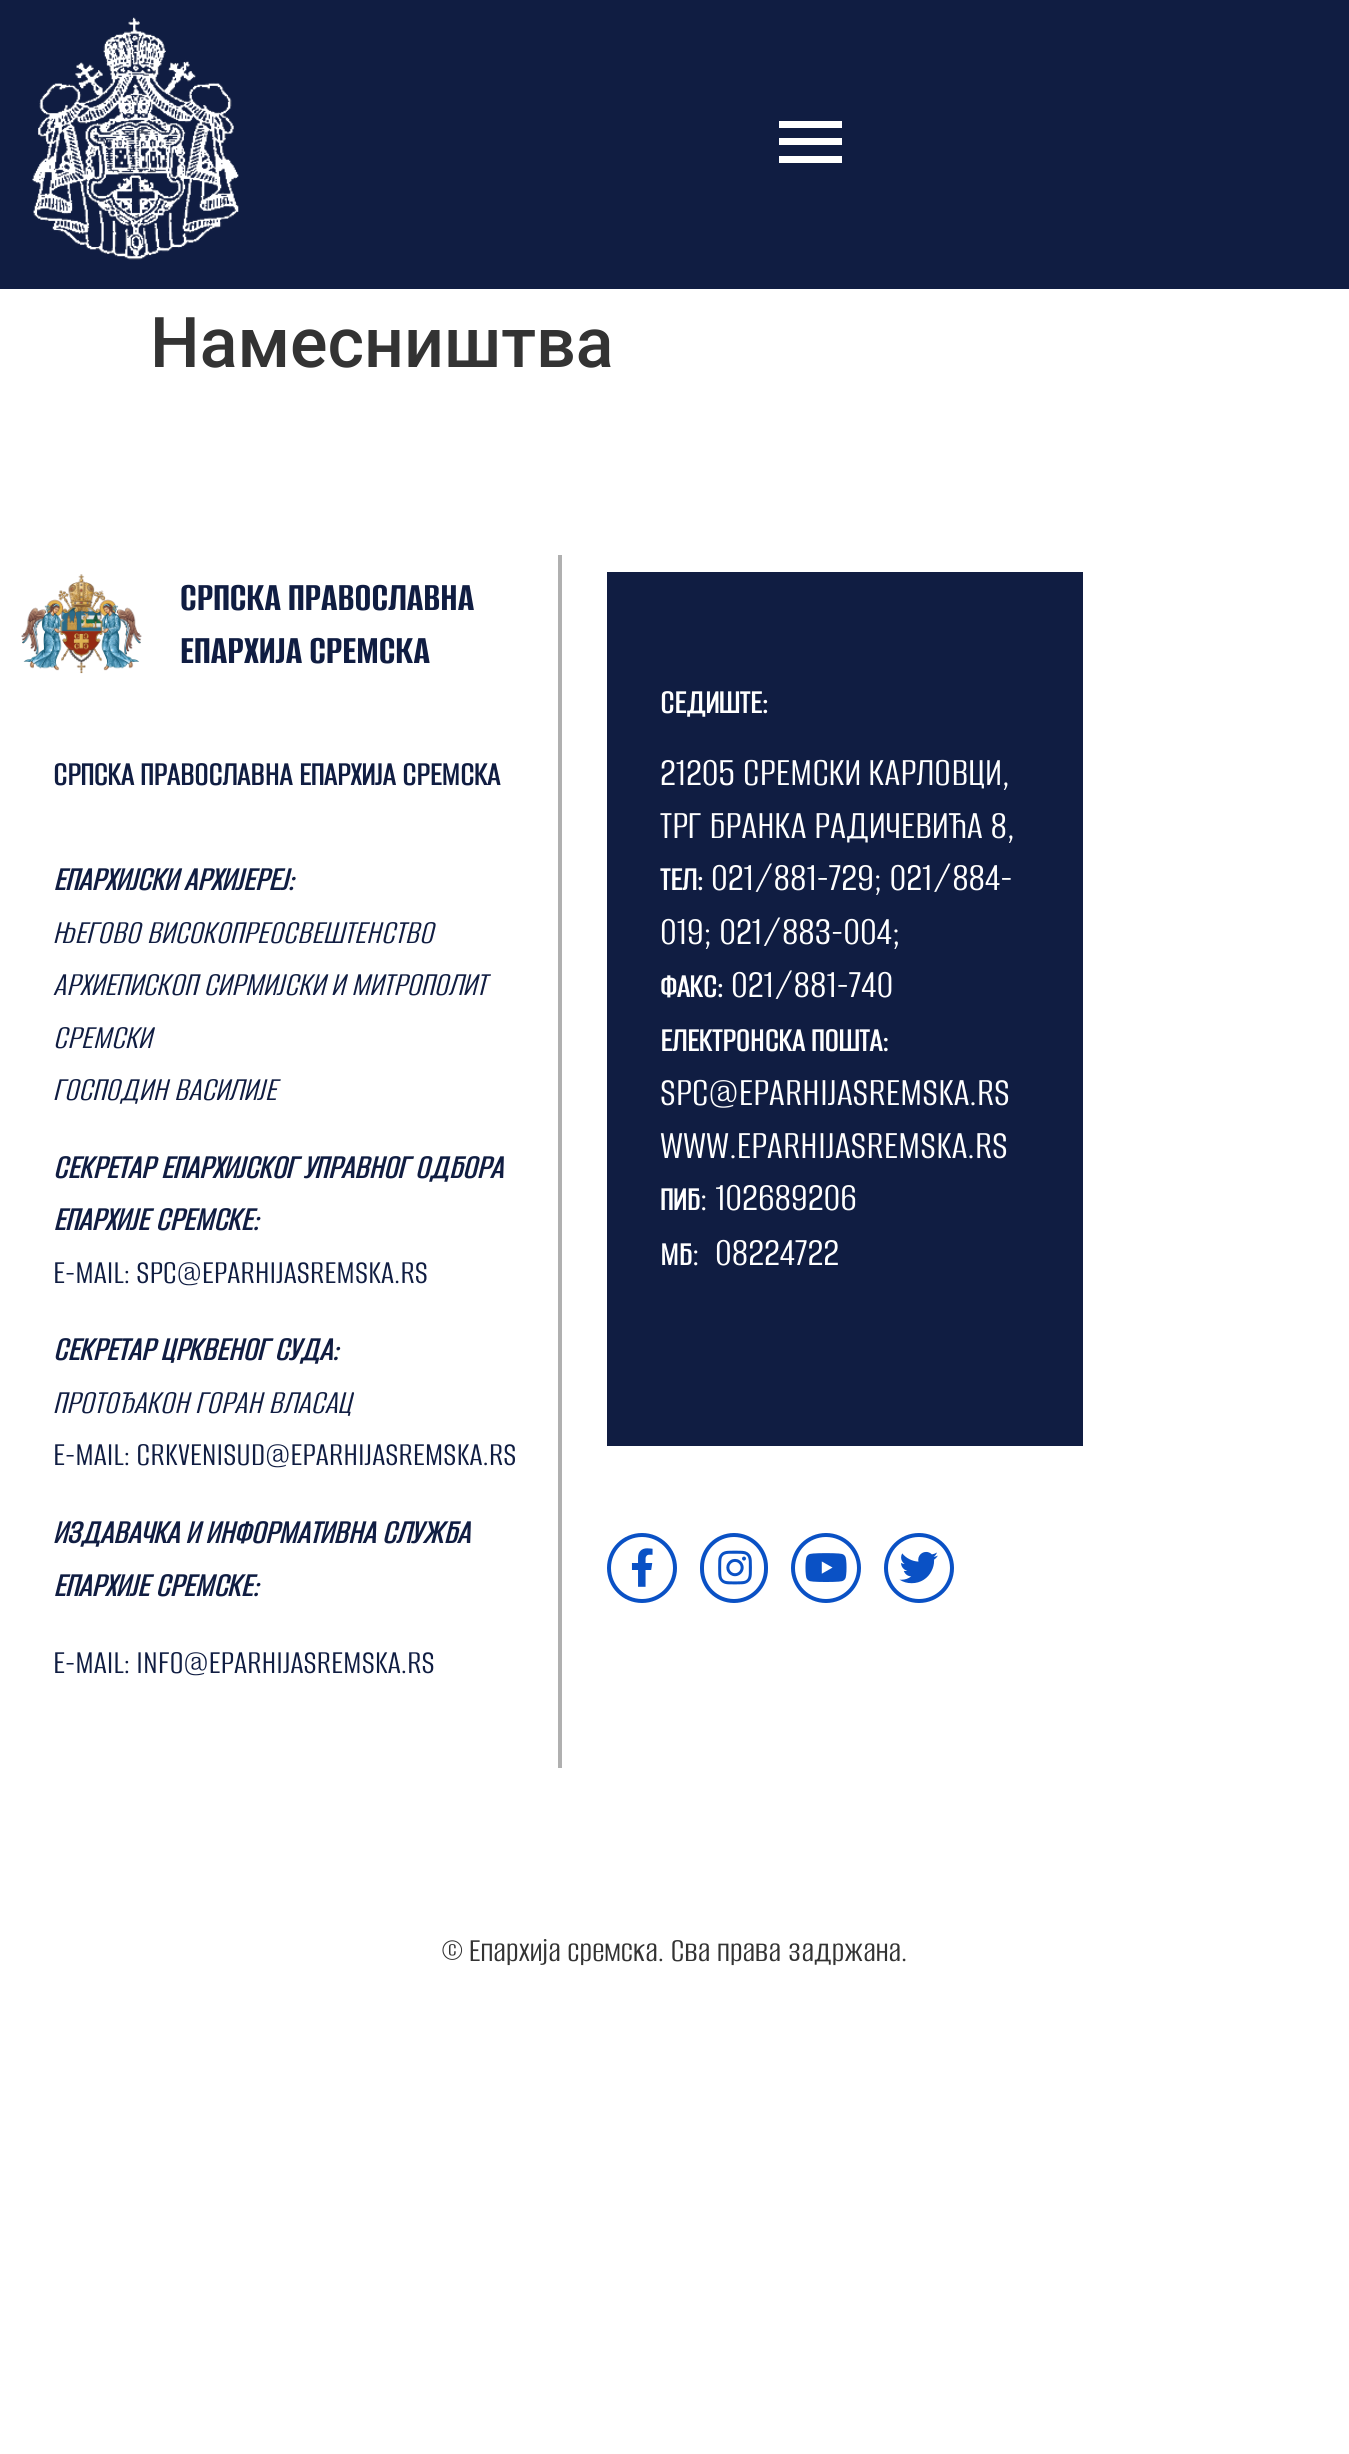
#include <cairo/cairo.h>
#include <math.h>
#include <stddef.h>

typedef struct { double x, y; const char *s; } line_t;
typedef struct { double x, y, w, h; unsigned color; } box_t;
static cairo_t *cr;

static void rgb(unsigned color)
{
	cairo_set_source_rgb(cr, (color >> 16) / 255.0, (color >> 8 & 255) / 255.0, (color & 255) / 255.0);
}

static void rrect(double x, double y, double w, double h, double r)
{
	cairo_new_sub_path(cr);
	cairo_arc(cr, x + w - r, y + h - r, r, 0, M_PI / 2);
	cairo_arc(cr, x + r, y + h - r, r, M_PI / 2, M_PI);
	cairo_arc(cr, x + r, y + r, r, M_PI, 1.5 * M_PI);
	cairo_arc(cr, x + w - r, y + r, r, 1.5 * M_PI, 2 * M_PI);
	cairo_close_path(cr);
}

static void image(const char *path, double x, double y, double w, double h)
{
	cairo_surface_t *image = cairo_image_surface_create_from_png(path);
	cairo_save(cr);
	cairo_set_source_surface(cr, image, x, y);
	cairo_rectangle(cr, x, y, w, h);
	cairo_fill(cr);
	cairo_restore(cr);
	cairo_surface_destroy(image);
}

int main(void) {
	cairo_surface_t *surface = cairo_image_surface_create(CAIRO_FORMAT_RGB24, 1349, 2454);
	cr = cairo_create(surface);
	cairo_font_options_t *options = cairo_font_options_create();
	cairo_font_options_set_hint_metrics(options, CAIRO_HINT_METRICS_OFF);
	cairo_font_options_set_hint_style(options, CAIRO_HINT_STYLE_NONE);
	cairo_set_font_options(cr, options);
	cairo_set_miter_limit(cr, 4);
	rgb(0xffffff);
	cairo_paint(cr);
	rgb(0x101d42);
	cairo_rectangle(cr, 0, 0, 1349, 289);
	cairo_fill(cr);
	image("img/1.png", 32, 17, 207, 243);
	{
		static const box_t items[] = {
			{779, 121, 63, 7, 0xffffff},
			{779, 138, 63, 7, 0xffffff},
			{779, 156, 63, 7, 0xffffff},
			{558, 555, 4, 1213, 0xb0b0b0},
		};
		for (size_t i = 0; i < sizeof items / sizeof *items; i++) {
			rgb(items[i].color);
			cairo_rectangle(cr, items[i].x, items[i].y, items[i].w, items[i].h);
			cairo_fill(cr);
		}
	}
	image("img/2.png", 21, 574, 121, 100);
	rgb(0x101d42);
	cairo_rectangle(cr, 607, 572, 476, 874);
	cairo_fill(cr);
	cairo_arc(cr, 642, 1568, 33, 0, 2 * M_PI);
	rgb(0x0a51c5);
	cairo_set_line_width(cr, 4);
	cairo_stroke(cr);
	image("img/3.png", 631, 1548, 22, 39);
	rrect(702, 1535, 64, 66, 32);
	cairo_stroke(cr);
	image("img/4.png", 718, 1550, 34, 35);
	cairo_arc(cr, 826, 1568, 33, 0, 2 * M_PI);
	cairo_stroke(cr);
	image("img/5.png", 805, 1553, 42, 29);
	cairo_arc(cr, 919, 1568, 33, 0, 2 * M_PI);
	cairo_stroke(cr);
	image("img/6.png", 899, 1551, 39, 33);
	cairo_select_font_face(cr, "Roboto Medium", CAIRO_FONT_SLANT_NORMAL, CAIRO_FONT_WEIGHT_NORMAL);
	cairo_set_font_size(cr, 70);
	rgb(0x333333);
	cairo_move_to(cr, 150, 367);
	cairo_show_text(cr, "Намесништва");
	cairo_select_font_face(cr, "Alumni Sans", CAIRO_FONT_SLANT_NORMAL, CAIRO_FONT_WEIGHT_BOLD);
	cairo_set_font_size(cr, 42);
	rgb(0x101d42);
	cairo_move_to(cr, 180, 610);
	cairo_show_text(cr, "СРПСКА ПРАВОСЛАВНА");
	cairo_move_to(cr, 180, 663);
	cairo_show_text(cr, "ЕПАРХИЈА СРЕМСКА");
	cairo_select_font_face(cr, "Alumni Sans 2", CAIRO_FONT_SLANT_NORMAL, CAIRO_FONT_WEIGHT_BOLD);
	cairo_set_font_size(cr, 35);
	cairo_move_to(cr, 53, 785);
	cairo_show_text(cr, "СРПСКА ПРАВОСЛАВНА ЕПАРХИЈА СРЕМСКА");
	cairo_select_font_face(cr, "Alumni Sans", CAIRO_FONT_SLANT_ITALIC, CAIRO_FONT_WEIGHT_BOLD);
	cairo_move_to(cr, 53, 890);
	cairo_show_text(cr, "ЕПАРХИЈСКИ АРХИЈЕРЕЈ:");
	cairo_select_font_face(cr, "Alumni Sans", CAIRO_FONT_SLANT_ITALIC, CAIRO_FONT_WEIGHT_NORMAL);
	{
		static const line_t items[] = {
			{53, 943, "ЊЕГОВО ВИСОКОПРЕОСВЕШТЕНСТВО"},
			{53, 995, "АРХИЕПИСКОП СИРМИЈСКИ И МИТРОПОЛИТ"},
			{53, 1048, "СРЕМСКИ"},
			{53, 1100, "ГОСПОДИН ВАСИЛИЈЕ"},
		};
		for (size_t i = 0; i < sizeof items / sizeof *items; i++) {
			cairo_move_to(cr, items[i].x, items[i].y);
			cairo_show_text(cr, items[i].s);
		}
	}
	cairo_select_font_face(cr, "Alumni Sans", CAIRO_FONT_SLANT_ITALIC, CAIRO_FONT_WEIGHT_BOLD);
	cairo_move_to(cr, 53, 1178);
	cairo_show_text(cr, "СЕКРЕТАР ЕПАРХИЈСКОГ УПРАВНОГ ОДБОРА");
	cairo_move_to(cr, 53, 1230);
	cairo_show_text(cr, "ЕПАРХИЈЕ СРЕМСКЕ:");
	cairo_select_font_face(cr, "Alumni Sans", CAIRO_FONT_SLANT_NORMAL, CAIRO_FONT_WEIGHT_NORMAL);
	cairo_move_to(cr, 53, 1283);
	cairo_show_text(cr, "E-MAIL: SPC@EPARHIJASREMSKA.RS");
	cairo_select_font_face(cr, "Alumni Sans", CAIRO_FONT_SLANT_ITALIC, CAIRO_FONT_WEIGHT_BOLD);
	cairo_move_to(cr, 53, 1360);
	cairo_show_text(cr, "СЕКРЕТАР ЦРКВЕНОГ СУДА:");
	cairo_select_font_face(cr, "Alumni Sans", CAIRO_FONT_SLANT_ITALIC, CAIRO_FONT_WEIGHT_NORMAL);
	cairo_move_to(cr, 53, 1413);
	cairo_show_text(cr, "ПРОТОЂАКОН ГОРАН ВЛАСАЦ");
	cairo_select_font_face(cr, "Alumni Sans", CAIRO_FONT_SLANT_NORMAL, CAIRO_FONT_WEIGHT_NORMAL);
	cairo_move_to(cr, 53, 1465);
	cairo_show_text(cr, "E-MAIL: CRKVENISUD@EPARHIJASREMSKA.RS");
	cairo_select_font_face(cr, "Alumni Sans", CAIRO_FONT_SLANT_ITALIC, CAIRO_FONT_WEIGHT_BOLD);
	cairo_move_to(cr, 53, 1543);
	cairo_show_text(cr, "ИЗДАВАЧКА И ИНФОРМАТИВНА СЛУЖБА");
	cairo_move_to(cr, 53, 1596);
	cairo_show_text(cr, "ЕПАРХИЈЕ СРЕМСКЕ:");
	cairo_select_font_face(cr, "Alumni Sans", CAIRO_FONT_SLANT_NORMAL, CAIRO_FONT_WEIGHT_NORMAL);
	cairo_move_to(cr, 53, 1673);
	cairo_show_text(cr, "E-MAIL: INFO@EPARHIJASREMSKA.RS");
	cairo_select_font_face(cr, "Alumni Sans 2", CAIRO_FONT_SLANT_NORMAL, CAIRO_FONT_WEIGHT_BOLD);
	rgb(0xffffff);
	cairo_move_to(cr, 660, 713);
	cairo_show_text(cr, "СЕДИШТЕ:");
	cairo_select_font_face(cr, "Alumni Sans", CAIRO_FONT_SLANT_NORMAL, CAIRO_FONT_WEIGHT_NORMAL);
	cairo_set_font_size(cr, 42);
	cairo_move_to(cr, 660, 785);
	cairo_show_text(cr, "21205 СРЕМСКИ КАРЛОВЦИ,");
	cairo_move_to(cr, 660, 838);
	cairo_show_text(cr, "ТРГ БРАНКА РАДИЧЕВИЋА 8,");
	cairo_select_font_face(cr, "Alumni Sans 2", CAIRO_FONT_SLANT_NORMAL, CAIRO_FONT_WEIGHT_BOLD);
	cairo_set_font_size(cr, 35);
	cairo_move_to(cr, 660, 890);
	cairo_show_text(cr, "ТЕЛ:");
	cairo_select_font_face(cr, "Alumni Sans", CAIRO_FONT_SLANT_NORMAL, CAIRO_FONT_WEIGHT_NORMAL);
	cairo_set_font_size(cr, 42);
	cairo_move_to(cr, 711, 890);
	cairo_show_text(cr, "021/881-729; 021/884-");
	cairo_move_to(cr, 660, 944);
	cairo_show_text(cr, "019; 021/883-004;");
	cairo_select_font_face(cr, "Alumni Sans 2", CAIRO_FONT_SLANT_NORMAL, CAIRO_FONT_WEIGHT_BOLD);
	cairo_set_font_size(cr, 35);
	cairo_move_to(cr, 660, 997);
	cairo_show_text(cr, "ФАКС:");
	cairo_select_font_face(cr, "Alumni Sans", CAIRO_FONT_SLANT_NORMAL, CAIRO_FONT_WEIGHT_NORMAL);
	cairo_set_font_size(cr, 42);
	cairo_move_to(cr, 731, 997);
	cairo_show_text(cr, "021/881-740");
	cairo_select_font_face(cr, "Alumni Sans 2", CAIRO_FONT_SLANT_NORMAL, CAIRO_FONT_WEIGHT_BOLD);
	cairo_set_font_size(cr, 35);
	cairo_move_to(cr, 660, 1051);
	cairo_show_text(cr, "ЕЛЕКТРОНСКА ПОШТА:");
	cairo_select_font_face(cr, "Alumni Sans", CAIRO_FONT_SLANT_NORMAL, CAIRO_FONT_WEIGHT_NORMAL);
	cairo_set_font_size(cr, 42);
	cairo_move_to(cr, 660, 1105);
	cairo_show_text(cr, "SPC@EPARHIJASREMSKA.RS");
	cairo_move_to(cr, 660, 1158);
	cairo_show_text(cr, "WWW.EPARHIJASREMSKA.RS");
	cairo_select_font_face(cr, "Alumni Sans 2", CAIRO_FONT_SLANT_NORMAL, CAIRO_FONT_WEIGHT_BOLD);
	cairo_set_font_size(cr, 35);
	cairo_move_to(cr, 660, 1210);
	cairo_show_text(cr, "ПИБ");
	cairo_select_font_face(cr, "Alumni Sans", CAIRO_FONT_SLANT_NORMAL, CAIRO_FONT_WEIGHT_NORMAL);
	cairo_set_font_size(cr, 42);
	cairo_move_to(cr, 700, 1210);
	cairo_show_text(cr, ": 102689206");
	cairo_select_font_face(cr, "Alumni Sans 2", CAIRO_FONT_SLANT_NORMAL, CAIRO_FONT_WEIGHT_BOLD);
	cairo_set_font_size(cr, 35);
	cairo_move_to(cr, 660, 1265);
	cairo_show_text(cr, "MБ");
	cairo_select_font_face(cr, "Alumni Sans", CAIRO_FONT_SLANT_NORMAL, CAIRO_FONT_WEIGHT_NORMAL);
	cairo_set_font_size(cr, 42);
	cairo_move_to(cr, 692, 1265);
	cairo_show_text(cr, ":  08224722");
	cairo_set_font_size(cr, 35);
	rgb(0x333333);
	cairo_move_to(cr, 441, 1961);
	cairo_show_text(cr, "© Епархија сремска. Сва права задржана.");
	cairo_surface_write_to_png(surface, "page.png");
	cairo_font_options_destroy(options);
	cairo_destroy(cr);
	cairo_surface_destroy(surface);
	return 0;
}
